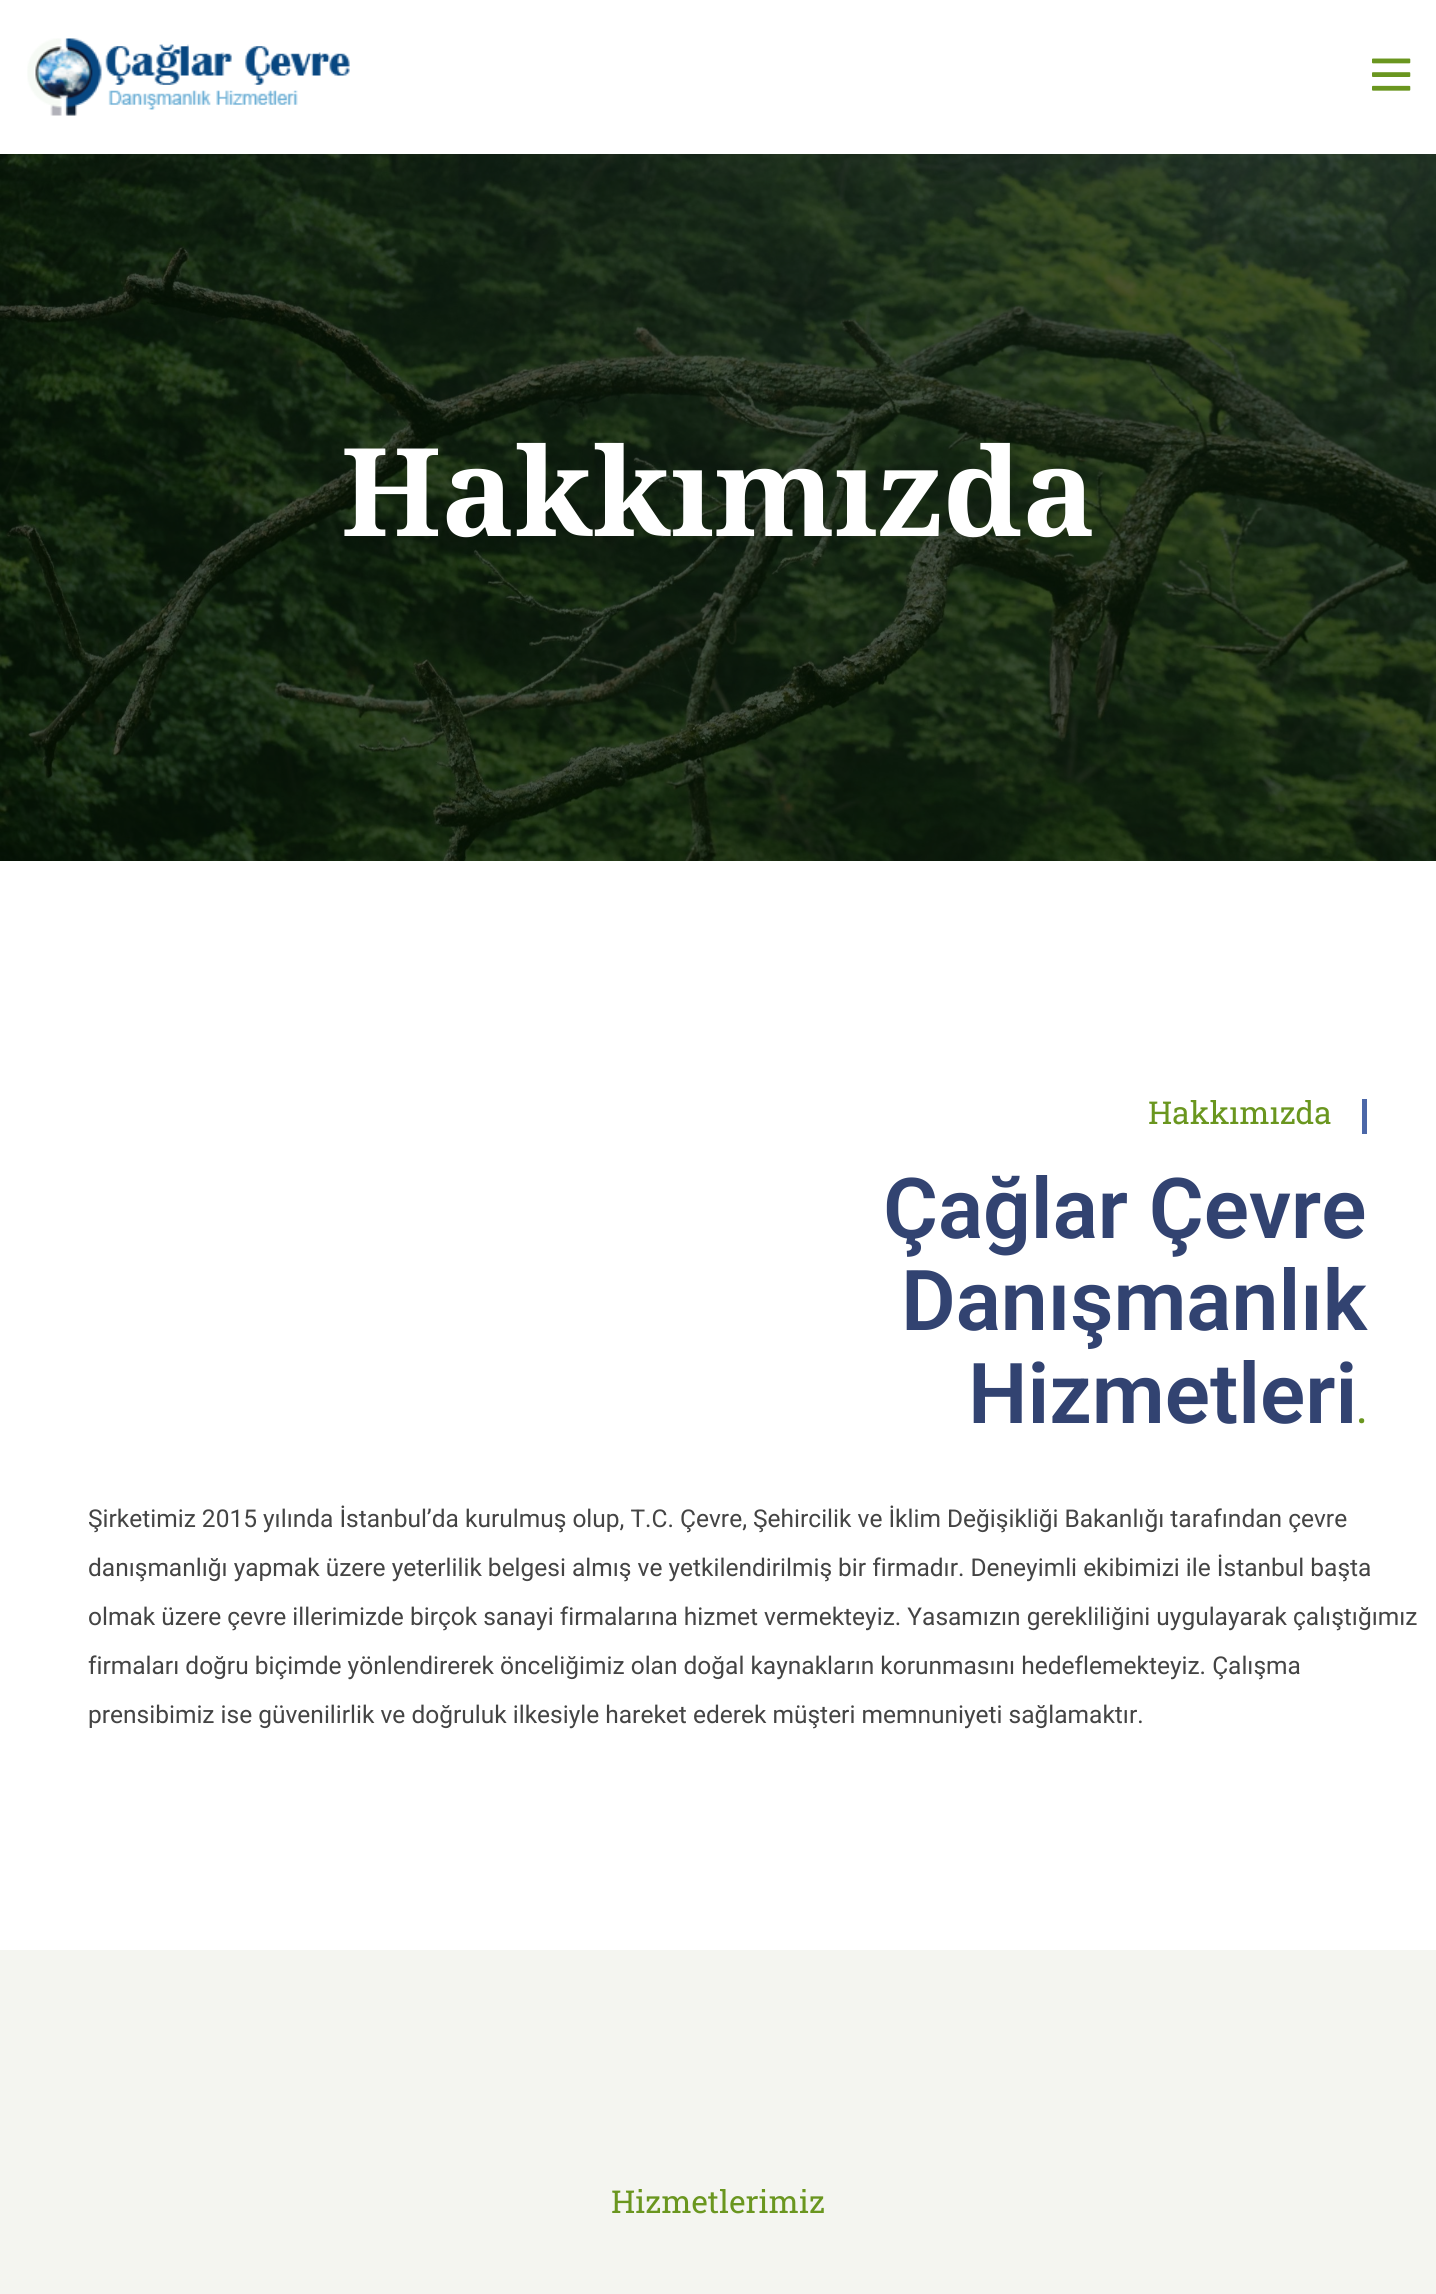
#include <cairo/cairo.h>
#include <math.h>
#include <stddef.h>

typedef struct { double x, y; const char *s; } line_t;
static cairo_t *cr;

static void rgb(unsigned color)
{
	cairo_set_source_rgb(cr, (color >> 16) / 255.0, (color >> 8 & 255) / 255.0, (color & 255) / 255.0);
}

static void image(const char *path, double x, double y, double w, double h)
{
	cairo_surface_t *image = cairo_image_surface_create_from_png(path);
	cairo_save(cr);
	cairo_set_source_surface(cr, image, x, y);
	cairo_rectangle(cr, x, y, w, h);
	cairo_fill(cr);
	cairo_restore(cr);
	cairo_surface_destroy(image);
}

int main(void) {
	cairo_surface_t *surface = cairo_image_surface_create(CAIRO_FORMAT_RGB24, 1436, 2294);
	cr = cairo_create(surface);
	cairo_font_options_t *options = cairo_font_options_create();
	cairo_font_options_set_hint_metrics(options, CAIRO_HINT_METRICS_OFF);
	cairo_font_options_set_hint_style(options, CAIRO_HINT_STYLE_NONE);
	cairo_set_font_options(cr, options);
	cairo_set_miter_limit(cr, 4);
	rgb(0xffffff);
	cairo_paint(cr);
	image("img/1.png", 27, 38, 323, 78);
	image("img/2.png", 1372, 58, 39, 33);
	image("img/3.png", 0, 154, 1436, 707);
	rgb(0x4b67a8);
	cairo_rectangle(cr, 1362, 1099, 5, 35);
	cairo_fill(cr);
	rgb(0xf4f5f0);
	cairo_rectangle(cr, 0, 1950, 1436, 344);
	cairo_fill(cr);
	cairo_select_font_face(cr, "Noto Serif", CAIRO_FONT_SLANT_NORMAL, CAIRO_FONT_WEIGHT_BOLD);
	cairo_set_font_size(cr, 122.5);
	rgb(0xffffff);
	cairo_move_to(cr, 341, 536);
	cairo_show_text(cr, "Hakkımızda");
	cairo_select_font_face(cr, "Roboto Slab", CAIRO_FONT_SLANT_NORMAL, CAIRO_FONT_WEIGHT_NORMAL);
	cairo_set_font_size(cr, 31.5);
	rgb(0x6a961f);
	cairo_move_to(cr, 1148, 1124);
	cairo_show_text(cr, "Hakkımızda");
	cairo_select_font_face(cr, "Roboto SemiBold", CAIRO_FONT_SLANT_NORMAL, CAIRO_FONT_WEIGHT_NORMAL);
	cairo_set_font_size(cr, 84);
	rgb(0x324371);
	{
		static const line_t items[] = {
			{883, 1238, "Çağlar Çevre"},
			{901, 1330, "Danışmanlık"},
			{968, 1423, "Hizmetleri"},
		};
		for (size_t i = 0; i < sizeof items / sizeof *items; i++) {
			cairo_move_to(cr, items[i].x, items[i].y);
			cairo_show_text(cr, items[i].s);
		}
	}
	cairo_select_font_face(cr, "Noto Serif", CAIRO_FONT_SLANT_NORMAL, CAIRO_FONT_WEIGHT_BOLD);
	cairo_set_font_size(cr, 31.5);
	rgb(0x6a961f);
	cairo_move_to(cr, 1357, 1423);
	cairo_show_text(cr, ".");
	cairo_select_font_face(cr, "Roboto", CAIRO_FONT_SLANT_NORMAL, CAIRO_FONT_WEIGHT_NORMAL);
	cairo_set_font_size(cr, 24.5);
	rgb(0x444444);
	{
		static const line_t items[] = {
			{88, 1527, "Şirketimiz 2015 yılında İstanbul’da kurulmuş olup, T.C. Çevre, Şehircilik ve İklim Değişikliği Bakanlığı tarafından çevre"},
			{88, 1576, "danışmanlığı yapmak üzere yeterlilik belgesi almış ve yetkilendirilmiş bir firmadır. Deneyimli ekibimizi ile İstanbul başta"},
			{88, 1625, "olmak üzere çevre illerimizde birçok sanayi firmalarına hizmet vermekteyiz. Yasamızın gerekliliğini uygulayarak çalıştığımız"},
			{88, 1674, "firmaları doğru biçimde yönlendirerek önceliğimiz olan doğal kaynakların korunmasını hedeflemekteyiz. Çalışma"},
			{88, 1723, "prensibimiz ise güvenilirlik ve doğruluk ilkesiyle hareket ederek müşteri memnuniyeti sağlamaktır."},
		};
		for (size_t i = 0; i < sizeof items / sizeof *items; i++) {
			cairo_move_to(cr, items[i].x, items[i].y);
			cairo_show_text(cr, items[i].s);
		}
	}
	cairo_select_font_face(cr, "Roboto Slab", CAIRO_FONT_SLANT_NORMAL, CAIRO_FONT_WEIGHT_NORMAL);
	cairo_set_font_size(cr, 31.5);
	rgb(0x6a961f);
	cairo_move_to(cr, 611, 2213);
	cairo_show_text(cr, "Hizmetlerimiz");
	cairo_surface_write_to_png(surface, "page.png");
	cairo_font_options_destroy(options);
	cairo_destroy(cr);
	cairo_surface_destroy(surface);
	return 0;
}
